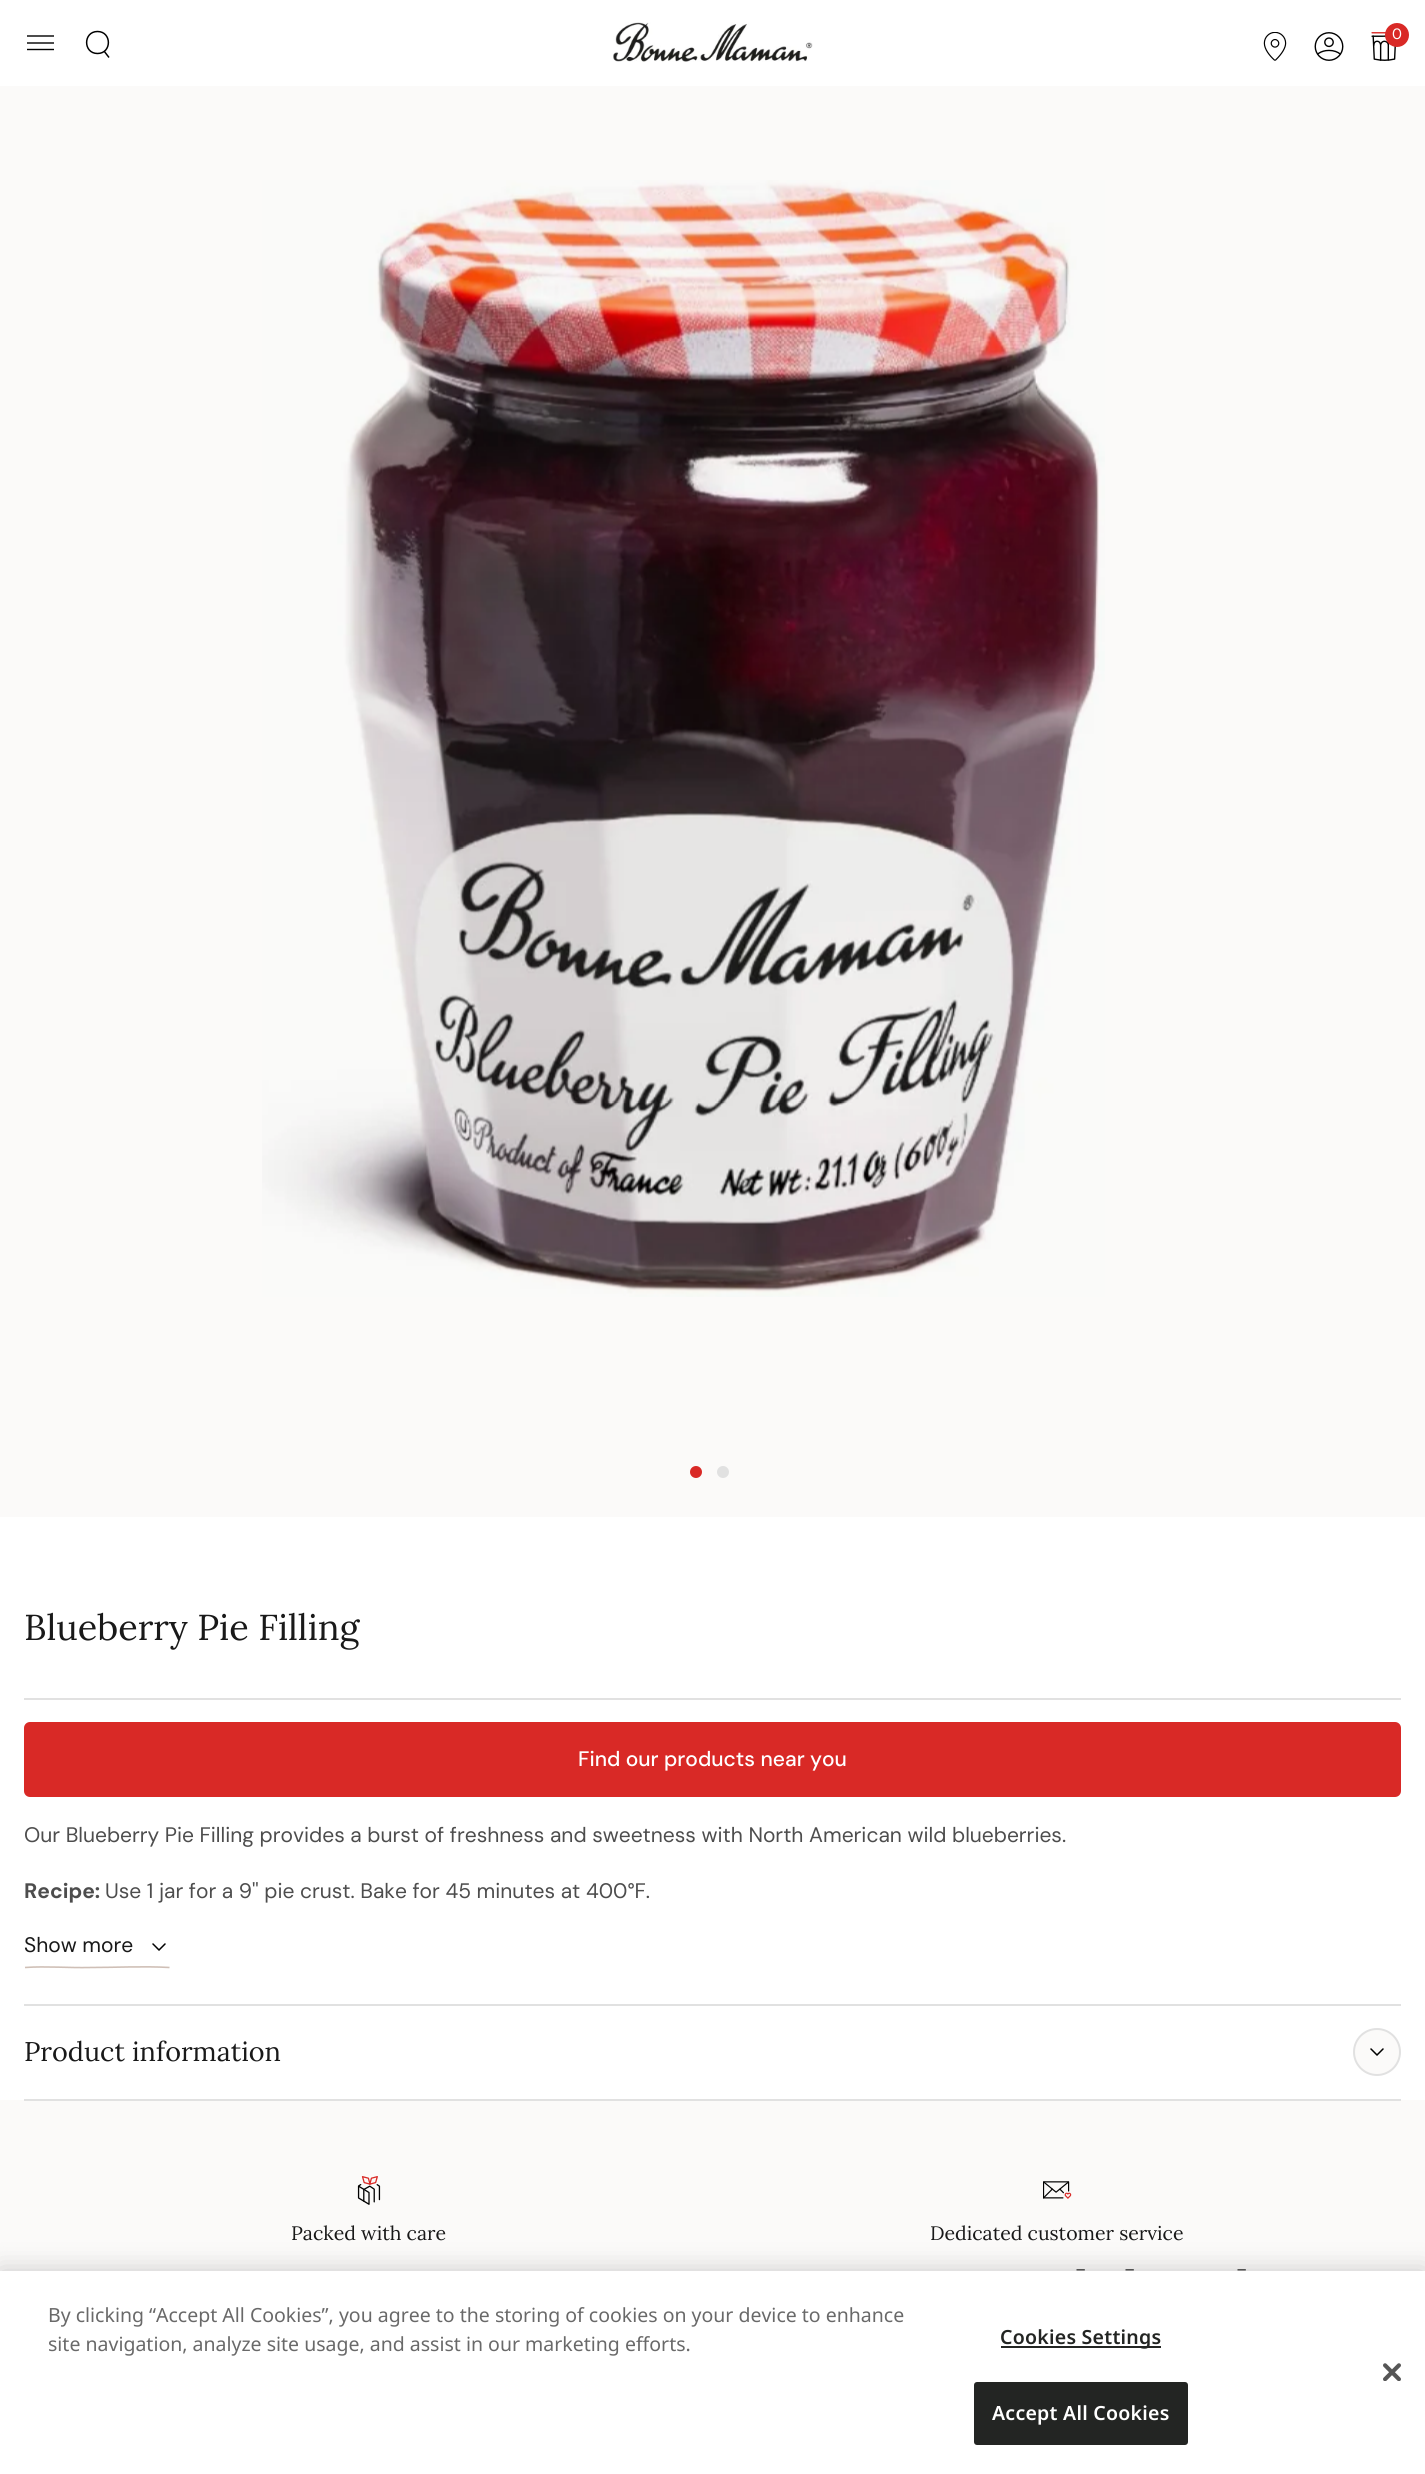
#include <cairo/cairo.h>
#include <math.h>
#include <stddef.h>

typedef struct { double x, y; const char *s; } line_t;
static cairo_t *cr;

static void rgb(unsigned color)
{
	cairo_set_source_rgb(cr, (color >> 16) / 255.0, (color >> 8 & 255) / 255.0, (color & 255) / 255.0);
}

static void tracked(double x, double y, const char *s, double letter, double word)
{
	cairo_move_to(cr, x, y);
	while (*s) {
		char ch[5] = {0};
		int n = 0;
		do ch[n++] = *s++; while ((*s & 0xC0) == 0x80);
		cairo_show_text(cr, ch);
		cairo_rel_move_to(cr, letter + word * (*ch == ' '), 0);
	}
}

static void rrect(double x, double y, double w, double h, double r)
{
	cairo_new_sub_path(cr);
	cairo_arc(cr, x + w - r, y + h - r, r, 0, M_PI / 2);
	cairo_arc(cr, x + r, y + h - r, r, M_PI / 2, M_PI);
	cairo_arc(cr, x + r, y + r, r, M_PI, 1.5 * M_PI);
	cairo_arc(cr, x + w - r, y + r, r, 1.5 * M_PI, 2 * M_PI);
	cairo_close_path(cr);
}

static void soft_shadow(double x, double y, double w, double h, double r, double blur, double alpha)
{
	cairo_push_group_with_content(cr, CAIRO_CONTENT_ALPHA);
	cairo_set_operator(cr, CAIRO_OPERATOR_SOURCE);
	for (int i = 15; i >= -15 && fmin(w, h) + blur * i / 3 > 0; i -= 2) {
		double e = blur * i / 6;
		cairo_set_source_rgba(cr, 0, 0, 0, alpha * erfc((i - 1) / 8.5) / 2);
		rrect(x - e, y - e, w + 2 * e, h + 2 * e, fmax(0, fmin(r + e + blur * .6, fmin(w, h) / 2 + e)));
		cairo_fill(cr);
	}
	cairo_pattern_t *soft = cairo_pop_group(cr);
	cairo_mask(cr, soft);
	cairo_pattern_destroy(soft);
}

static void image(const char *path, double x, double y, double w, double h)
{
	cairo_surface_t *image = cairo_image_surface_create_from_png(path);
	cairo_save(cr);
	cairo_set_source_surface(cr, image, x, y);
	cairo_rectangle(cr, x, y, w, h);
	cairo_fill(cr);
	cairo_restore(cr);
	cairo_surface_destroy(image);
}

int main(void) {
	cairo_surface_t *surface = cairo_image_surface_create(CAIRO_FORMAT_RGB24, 1425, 2474);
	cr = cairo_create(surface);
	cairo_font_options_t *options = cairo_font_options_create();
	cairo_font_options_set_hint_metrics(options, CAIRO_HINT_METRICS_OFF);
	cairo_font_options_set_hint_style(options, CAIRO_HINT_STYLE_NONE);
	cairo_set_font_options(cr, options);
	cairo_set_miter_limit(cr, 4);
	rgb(0xffffff);
	cairo_paint(cr);
	cairo_new_path(cr);
	cairo_move_to(cr, 27, 36);
	cairo_line_to(cr, 54, 36);
	cairo_move_to(cr, 27, 43);
	cairo_line_to(cr, 54, 43);
	cairo_move_to(cr, 27, 49.5);
	cairo_line_to(cr, 54, 49.5);
	rgb(0x000000);
	cairo_set_line_width(cr, 1.4);
	cairo_stroke(cr);
	cairo_new_path(cr);
	cairo_move_to(cr, 97.5, 53.5);
	cairo_curve_to(cr, 112, 53.5, 112, 31.5, 97.5, 31.5);
	cairo_curve_to(cr, 83, 31.5, 83, 53.5, 97.5, 53.5);
	cairo_close_path(cr);
	cairo_move_to(cr, 104, 51);
	cairo_line_to(cr, 109, 57.5);
	cairo_set_line_width(cr, 1.5);
	cairo_stroke(cr);
	image("img/1.png", 613, 22, 200, 40);
	image("img/2.png", 1263, 32, 24, 29);
	image("img/3.png", 1314, 32, 30, 29);
	image("img/4.png", 1371, 32, 25, 29);
	rgb(0xd92926);
	cairo_arc(cr, 1397, 35, 12, 0, 2 * M_PI);
	cairo_fill(cr);
	rgb(0xfbfaf9);
	cairo_rectangle(cr, 0, 86, 1425, 1431);
	cairo_fill(cr);
	image("img/5.png", 262, 180, 843, 1117);
	rgb(0xd92926);
	cairo_arc(cr, 696, 1472, 6, 0, 2 * M_PI);
	cairo_fill(cr);
	rgb(0xe1e1e1);
	cairo_arc(cr, 723, 1472, 6, 0, 2 * M_PI);
	cairo_fill(cr);
	cairo_rectangle(cr, 24, 1698, 1377, 2);
	cairo_fill(cr);
	cairo_rectangle(cr, 24, 2004, 1377, 2);
	cairo_fill(cr);
	rgb(0xd92926);
	rrect(24, 1722, 1377, 75, 6);
	cairo_fill(cr);
	cairo_new_path(cr);
	cairo_move_to(cr, 165, 1944);
	cairo_line_to(cr, 159, 1950);
	cairo_line_to(cr, 153, 1944);
	rgb(0x000000);
	cairo_set_line_cap(cr, CAIRO_LINE_CAP_ROUND);
	cairo_stroke(cr);
	cairo_new_path(cr);
	cairo_move_to(cr, 25, 1967.5);
	cairo_curve_to(cr, 46.5, 1966, 68.5, 1968, 90, 1967.5);
	cairo_curve_to(cr, 116.5, 1967.5, 143, 1966, 169.5, 1967.5);
	rgb(0xcfbfb6);
	cairo_set_line_width(cr, 1.6);
	cairo_set_line_cap(cr, CAIRO_LINE_CAP_BUTT);
	cairo_stroke(cr);
	rgb(0xfbfaf9);
	cairo_arc(cr, 1377, 2052, 23, 0, 2 * M_PI);
	cairo_fill_preserve(cr);
	rgb(0xe1e1e1);
	cairo_set_line_width(cr, 2);
	cairo_stroke(cr);
	cairo_new_path(cr);
	cairo_move_to(cr, 1383, 2049);
	cairo_line_to(cr, 1377, 2055);
	cairo_line_to(cr, 1371, 2049);
	rgb(0x000000);
	cairo_set_line_width(cr, 1.5);
	cairo_set_line_cap(cr, CAIRO_LINE_CAP_ROUND);
	cairo_stroke(cr);
	rgb(0xfbfaf9);
	cairo_rectangle(cr, 0, 2100, 1425, 171);
	cairo_fill(cr);
	rgb(0xe1e1e1);
	cairo_rectangle(cr, 24, 2099, 1377, 2);
	cairo_fill(cr);
	image("img/6.png", 357, 2176, 24, 29);
	image("img/7.png", 1043, 2181, 29, 18);
	rgb(0x000000);
	soft_shadow(0, 2271, 1425, 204, 0, 13.5, 0.2);
	rgb(0xffffff);
	cairo_rectangle(cr, 0, 2271, 1425, 203);
	cairo_fill(cr);
	rgb(0x232523);
	cairo_rectangle(cr, 1001, 2346, 160, 2);
	cairo_fill(cr);
	rrect(975, 2383, 212, 61, 2);
	cairo_fill_preserve(cr);
	cairo_set_line_width(cr, 2);
	cairo_set_line_cap(cr, CAIRO_LINE_CAP_BUTT);
	cairo_stroke(cr);
	image("img/8.png", 1383, 2363, 18, 18);
	cairo_select_font_face(cr, "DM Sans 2", CAIRO_FONT_SLANT_NORMAL, CAIRO_FONT_WEIGHT_NORMAL);
	cairo_set_font_size(cr, 15);
	rgb(0xffffff);
	cairo_move_to(cr, 1392, 39);
	cairo_show_text(cr, "0");
	cairo_select_font_face(cr, "Lora", CAIRO_FONT_SLANT_NORMAL, CAIRO_FONT_WEIGHT_NORMAL);
	cairo_set_font_size(cr, 36);
	rgb(0x191919);
	cairo_move_to(cr, 24, 1640);
	cairo_show_text(cr, "Blueberry Pie Filling");
	cairo_select_font_face(cr, "DM Sans Medium", CAIRO_FONT_SLANT_NORMAL, CAIRO_FONT_WEIGHT_NORMAL);
	cairo_set_font_size(cr, 21);
	rgb(0xffffff);
	cairo_move_to(cr, 578, 1766);
	cairo_show_text(cr, "Find our products near you");
	cairo_select_font_face(cr, "DM Sans", CAIRO_FONT_SLANT_NORMAL, CAIRO_FONT_WEIGHT_NORMAL);
	rgb(0x4d4d4d);
	cairo_move_to(cr, 24, 1842);
	cairo_show_text(cr, "Our Blueberry Pie Filling provides a burst of freshness and sweetness with North American wild blueberries.");
	cairo_select_font_face(cr, "DM Sans", CAIRO_FONT_SLANT_NORMAL, CAIRO_FONT_WEIGHT_BOLD);
	cairo_move_to(cr, 24, 1898);
	cairo_show_text(cr, "Recipe:");
	cairo_select_font_face(cr, "DM Sans", CAIRO_FONT_SLANT_NORMAL, CAIRO_FONT_WEIGHT_NORMAL);
	cairo_move_to(cr, 105, 1898);
	cairo_show_text(cr, "Use 1 jar for a 9'' pie crust. Bake for 45 minutes at 400°F.");
	rgb(0x191919);
	cairo_move_to(cr, 24, 1952);
	cairo_show_text(cr, "Show more");
	cairo_select_font_face(cr, "Lora", CAIRO_FONT_SLANT_NORMAL, CAIRO_FONT_WEIGHT_NORMAL);
	cairo_set_font_size(cr, 27);
	cairo_move_to(cr, 24, 2061);
	cairo_show_text(cr, "Product information");
	cairo_set_font_size(cr, 19.5);
	cairo_move_to(cr, 291, 2240);
	cairo_show_text(cr, "Packed with care");
	cairo_move_to(cr, 930, 2240);
	cairo_show_text(cr, "Dedicated customer service");
	cairo_select_font_face(cr, "DM Sans", CAIRO_FONT_SLANT_NORMAL, CAIRO_FONT_WEIGHT_NORMAL);
	cairo_set_font_size(cr, 21);
	rgb(0x4d4d4d);
	{
		static const line_t items[] = {
			{1075, 2276, "-"},
			{1124, 2276, "-"},
			{1236, 2276, "-"},
		};
		for (size_t i = 0; i < sizeof items / sizeof *items; i++) {
			cairo_move_to(cr, items[i].x, items[i].y);
			cairo_show_text(cr, items[i].s);
		}
	}
	cairo_select_font_face(cr, "Noto Sans", CAIRO_FONT_SLANT_NORMAL, CAIRO_FONT_WEIGHT_NORMAL);
	cairo_set_font_size(cr, 19.5);
	rgb(0x696969);
	cairo_move_to(cr, 48, 2322);
	cairo_show_text(cr, "By clicking “Accept All Cookies”, you agree to the storing of cookies on your device to enhance");
	cairo_move_to(cr, 48, 2351);
	cairo_show_text(cr, "site navigation, analyze site usage, and assist in our marketing efforts.");
	cairo_select_font_face(cr, "Noto Sans SemiBold", CAIRO_FONT_SLANT_NORMAL, CAIRO_FONT_WEIGHT_NORMAL);
	rgb(0x232523);
	tracked(1000, 2344, "Cookies Settings", 0.25, 0);
	rgb(0xffffff);
	tracked(992, 2420, "Accept All Cookies", 0.25, 0);
	cairo_surface_write_to_png(surface, "page.png");
	cairo_font_options_destroy(options);
	cairo_destroy(cr);
	cairo_surface_destroy(surface);
	return 0;
}
